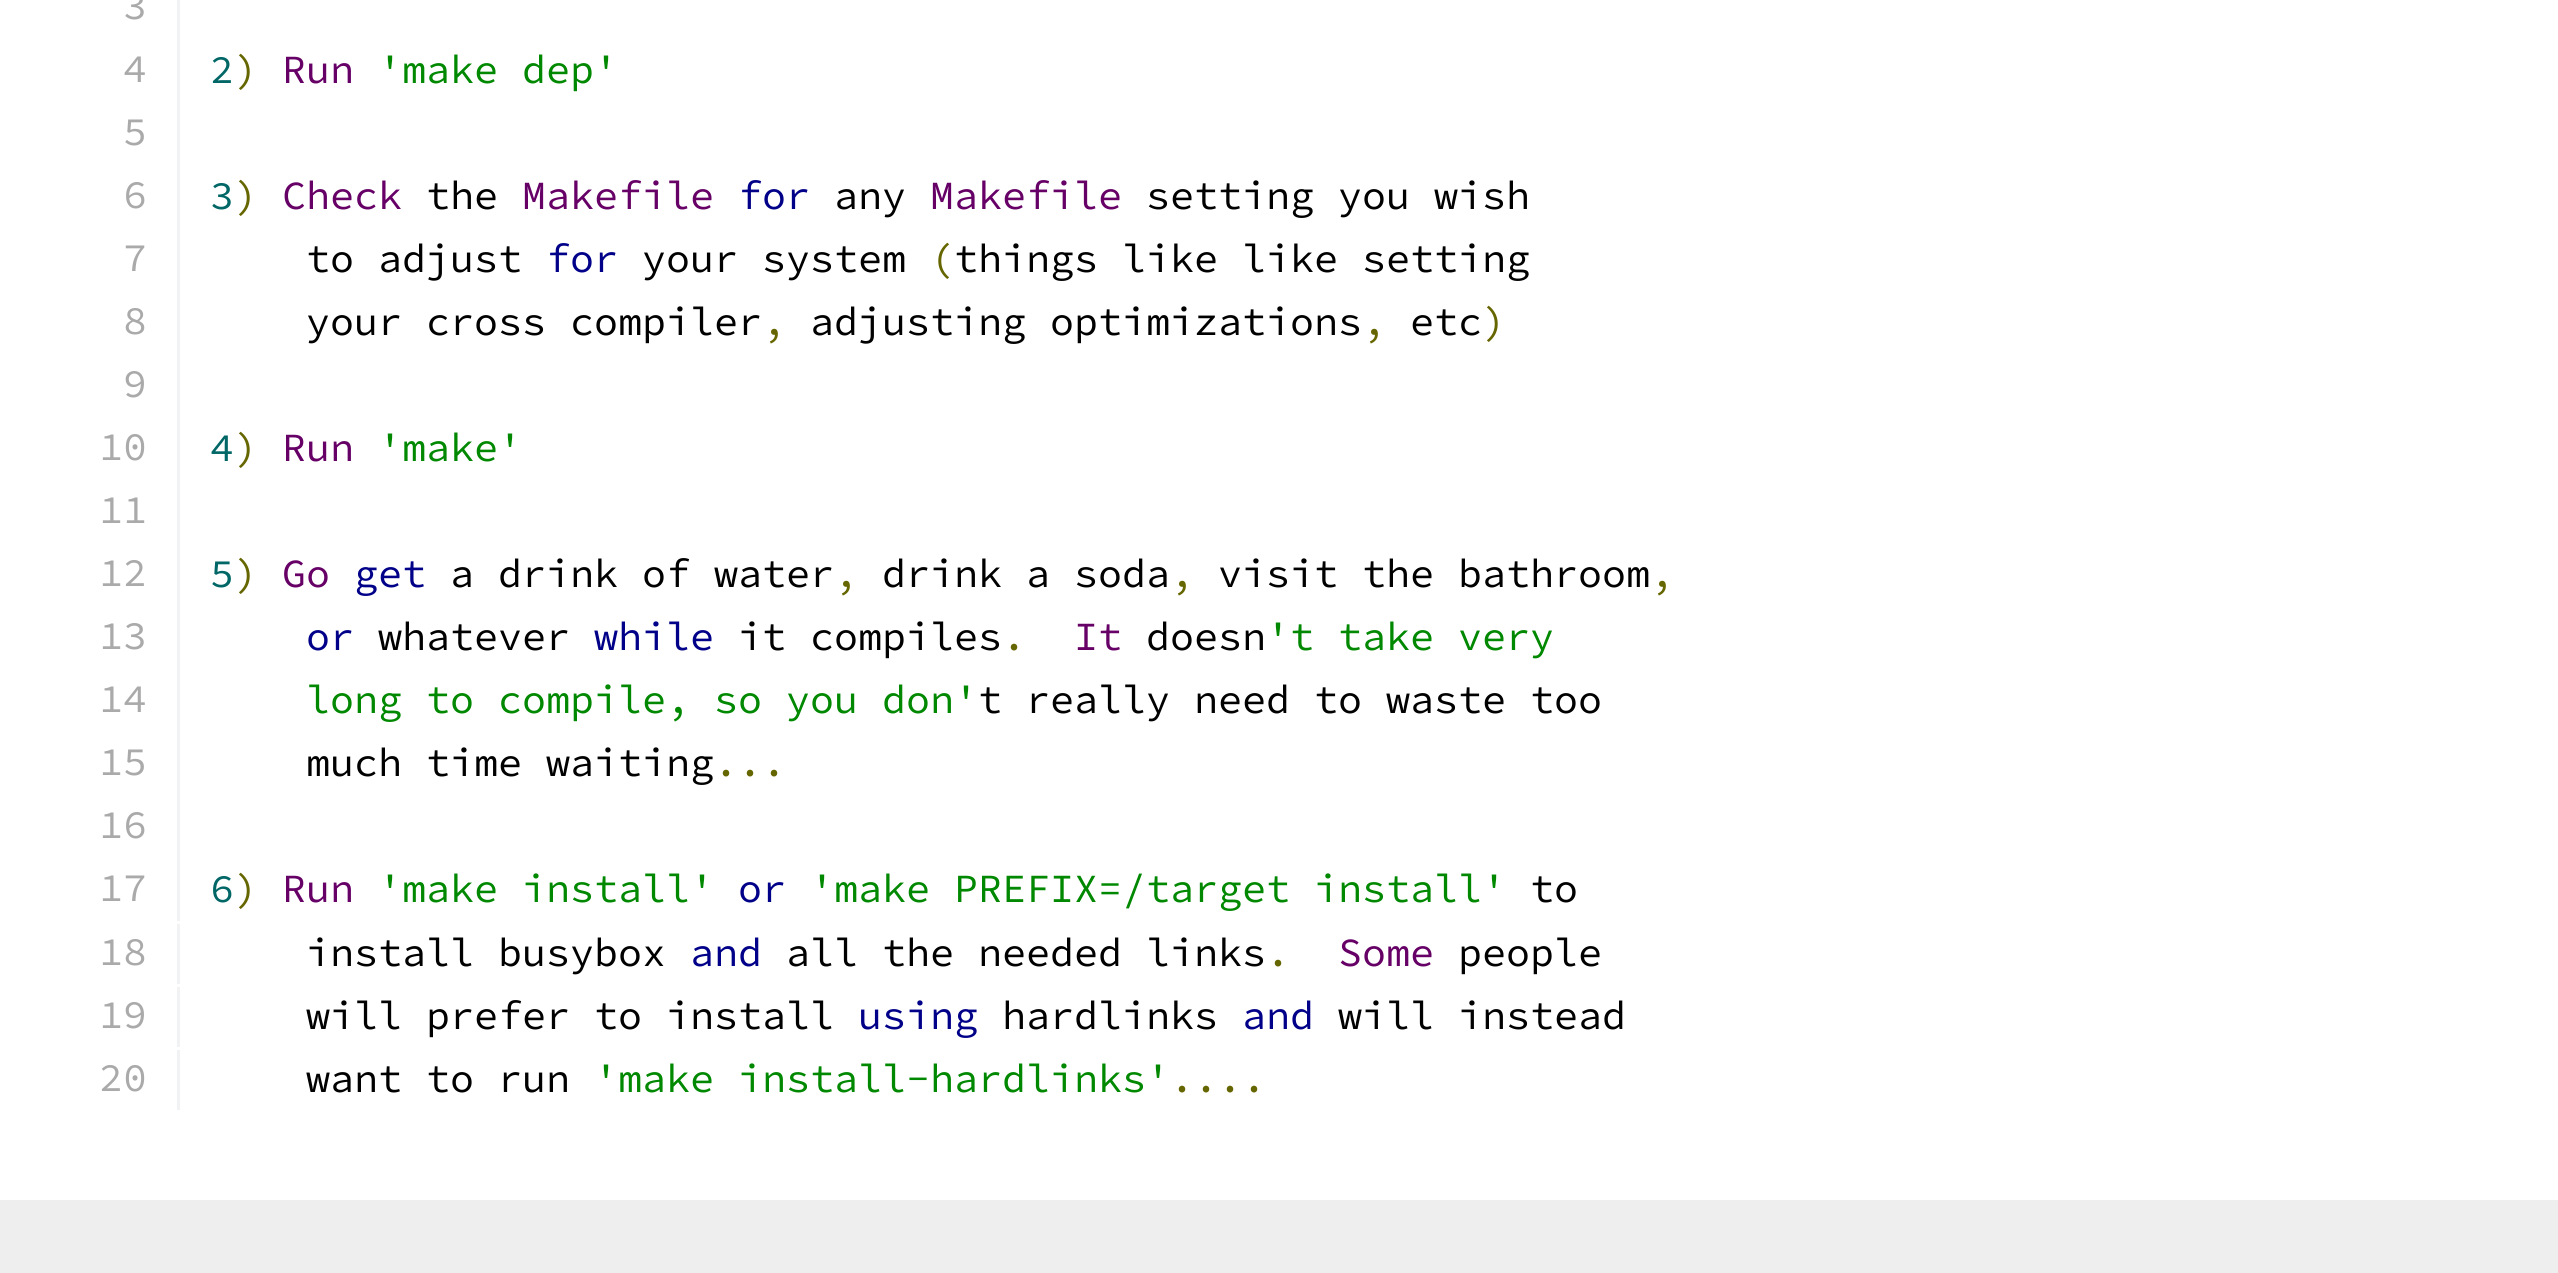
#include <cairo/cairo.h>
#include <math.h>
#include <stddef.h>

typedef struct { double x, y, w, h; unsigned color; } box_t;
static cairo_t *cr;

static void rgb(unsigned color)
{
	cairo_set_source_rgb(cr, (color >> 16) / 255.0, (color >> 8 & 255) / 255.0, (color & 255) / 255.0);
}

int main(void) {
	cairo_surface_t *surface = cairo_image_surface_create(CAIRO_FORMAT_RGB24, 2558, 1273);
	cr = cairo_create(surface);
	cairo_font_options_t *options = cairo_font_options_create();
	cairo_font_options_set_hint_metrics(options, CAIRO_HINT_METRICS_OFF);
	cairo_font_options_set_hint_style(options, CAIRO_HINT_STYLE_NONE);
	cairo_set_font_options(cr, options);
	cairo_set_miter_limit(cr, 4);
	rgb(0xffffff);
	cairo_paint(cr);
	{
		static const box_t items[] = {
			{177, 0, 3, 921, 0xf1f2f3},
			{177, 924, 3, 60, 0xf1f2f3},
			{177, 987, 3, 60, 0xf1f2f3},
			{177, 1050, 3, 60, 0xf1f2f3},
			{0, 1200, 2558, 73, 0xeeeeee},
		};
		for (size_t i = 0; i < sizeof items / sizeof *items; i++) {
			rgb(items[i].color);
			cairo_rectangle(cr, items[i].x, items[i].y, items[i].w, items[i].h);
			cairo_fill(cr);
		}
	}
	cairo_select_font_face(cr, "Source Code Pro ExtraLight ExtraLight", CAIRO_FONT_SLANT_NORMAL, CAIRO_FONT_WEIGHT_NORMAL);
	cairo_set_font_size(cr, 40);
	rgb(0xaaaaaa);
	cairo_move_to(cr, 123, 19);
	cairo_show_text(cr, "3");
	cairo_move_to(cr, 123, 82);
	cairo_show_text(cr, "4");
	rgb(0x006666);
	cairo_move_to(cr, 210, 83);
	cairo_show_text(cr, "2");
	rgb(0x666600);
	cairo_move_to(cr, 234, 83);
	cairo_show_text(cr, ")");
	rgb(0x660066);
	cairo_move_to(cr, 282, 83);
	cairo_show_text(cr, "Run");
	rgb(0x008800);
	cairo_move_to(cr, 378, 83);
	cairo_show_text(cr, "'make dep'");
	rgb(0xaaaaaa);
	cairo_move_to(cr, 123, 145);
	cairo_show_text(cr, "5");
	cairo_move_to(cr, 123, 208);
	cairo_show_text(cr, "6");
	rgb(0x006666);
	cairo_move_to(cr, 210, 209);
	cairo_show_text(cr, "3");
	rgb(0x666600);
	cairo_move_to(cr, 234, 209);
	cairo_show_text(cr, ")");
	rgb(0x660066);
	cairo_move_to(cr, 282, 209);
	cairo_show_text(cr, "Check");
	rgb(0x000000);
	cairo_move_to(cr, 426, 209);
	cairo_show_text(cr, "the");
	rgb(0x660066);
	cairo_move_to(cr, 522, 209);
	cairo_show_text(cr, "Makefile");
	rgb(0x000088);
	cairo_move_to(cr, 738, 209);
	cairo_show_text(cr, "for");
	rgb(0x000000);
	cairo_move_to(cr, 834, 209);
	cairo_show_text(cr, "any");
	rgb(0x660066);
	cairo_move_to(cr, 930, 209);
	cairo_show_text(cr, "Makefile");
	rgb(0x000000);
	cairo_move_to(cr, 1146, 209);
	cairo_show_text(cr, "setting you wish");
	rgb(0xaaaaaa);
	cairo_move_to(cr, 123, 271);
	cairo_show_text(cr, "7");
	rgb(0x000000);
	cairo_move_to(cr, 306, 272);
	cairo_show_text(cr, "to adjust");
	rgb(0x000088);
	cairo_move_to(cr, 546, 272);
	cairo_show_text(cr, "for");
	rgb(0x000000);
	cairo_move_to(cr, 642, 272);
	cairo_show_text(cr, "your system");
	rgb(0x666600);
	cairo_move_to(cr, 930, 272);
	cairo_show_text(cr, "(");
	rgb(0x000000);
	cairo_move_to(cr, 954, 272);
	cairo_show_text(cr, "things like like setting");
	rgb(0xaaaaaa);
	cairo_move_to(cr, 123, 334);
	cairo_show_text(cr, "8");
	rgb(0x000000);
	cairo_move_to(cr, 306, 335);
	cairo_show_text(cr, "your cross compiler");
	rgb(0x666600);
	cairo_move_to(cr, 762, 335);
	cairo_show_text(cr, ",");
	rgb(0x000000);
	cairo_move_to(cr, 810, 335);
	cairo_show_text(cr, "adjusting optimizations");
	rgb(0x666600);
	cairo_move_to(cr, 1362, 335);
	cairo_show_text(cr, ",");
	rgb(0x000000);
	cairo_move_to(cr, 1410, 335);
	cairo_show_text(cr, "etc");
	rgb(0x666600);
	cairo_move_to(cr, 1482, 335);
	cairo_show_text(cr, ")");
	rgb(0xaaaaaa);
	cairo_move_to(cr, 123, 397);
	cairo_show_text(cr, "9");
	cairo_move_to(cr, 99, 460);
	cairo_show_text(cr, "10");
	rgb(0x006666);
	cairo_move_to(cr, 210, 461);
	cairo_show_text(cr, "4");
	rgb(0x666600);
	cairo_move_to(cr, 234, 461);
	cairo_show_text(cr, ")");
	rgb(0x660066);
	cairo_move_to(cr, 282, 461);
	cairo_show_text(cr, "Run");
	rgb(0x008800);
	cairo_move_to(cr, 378, 461);
	cairo_show_text(cr, "'make'");
	rgb(0xaaaaaa);
	cairo_move_to(cr, 99, 523);
	cairo_show_text(cr, "11");
	cairo_move_to(cr, 99, 586);
	cairo_show_text(cr, "12");
	rgb(0x006666);
	cairo_move_to(cr, 210, 587);
	cairo_show_text(cr, "5");
	rgb(0x666600);
	cairo_move_to(cr, 234, 587);
	cairo_show_text(cr, ")");
	rgb(0x660066);
	cairo_move_to(cr, 282, 587);
	cairo_show_text(cr, "Go");
	rgb(0x000088);
	cairo_move_to(cr, 354, 587);
	cairo_show_text(cr, "get");
	rgb(0x000000);
	cairo_move_to(cr, 450, 587);
	cairo_show_text(cr, "a drink of water");
	rgb(0x666600);
	cairo_move_to(cr, 834, 587);
	cairo_show_text(cr, ",");
	rgb(0x000000);
	cairo_move_to(cr, 882, 587);
	cairo_show_text(cr, "drink a soda");
	rgb(0x666600);
	cairo_move_to(cr, 1170, 587);
	cairo_show_text(cr, ",");
	rgb(0x000000);
	cairo_move_to(cr, 1218, 587);
	cairo_show_text(cr, "visit the bathroom");
	rgb(0x666600);
	cairo_move_to(cr, 1650, 587);
	cairo_show_text(cr, ",");
	rgb(0xaaaaaa);
	cairo_move_to(cr, 99, 649);
	cairo_show_text(cr, "13");
	rgb(0x000088);
	cairo_move_to(cr, 306, 650);
	cairo_show_text(cr, "or");
	rgb(0x000000);
	cairo_move_to(cr, 378, 650);
	cairo_show_text(cr, "whatever");
	rgb(0x000088);
	cairo_move_to(cr, 594, 650);
	cairo_show_text(cr, "while");
	rgb(0x000000);
	cairo_move_to(cr, 738, 650);
	cairo_show_text(cr, "it compiles");
	rgb(0x666600);
	cairo_move_to(cr, 1002, 650);
	cairo_show_text(cr, ".");
	rgb(0x660066);
	cairo_move_to(cr, 1074, 650);
	cairo_show_text(cr, "It");
	rgb(0x000000);
	cairo_move_to(cr, 1146, 650);
	cairo_show_text(cr, "doesn");
	rgb(0x008800);
	cairo_move_to(cr, 1266, 650);
	cairo_show_text(cr, "'t take very");
	rgb(0xaaaaaa);
	cairo_move_to(cr, 99, 712);
	cairo_show_text(cr, "14");
	rgb(0x008800);
	cairo_move_to(cr, 306, 713);
	cairo_show_text(cr, "long to compile, so you don'");
	rgb(0x000000);
	cairo_move_to(cr, 978, 713);
	cairo_show_text(cr, "t really need to waste too");
	rgb(0xaaaaaa);
	cairo_move_to(cr, 99, 775);
	cairo_show_text(cr, "15");
	rgb(0x000000);
	cairo_move_to(cr, 306, 776);
	cairo_show_text(cr, "much time waiting");
	rgb(0x666600);
	cairo_move_to(cr, 714, 776);
	cairo_show_text(cr, "...");
	rgb(0xaaaaaa);
	cairo_move_to(cr, 99, 838);
	cairo_show_text(cr, "16");
	cairo_move_to(cr, 99, 901);
	cairo_show_text(cr, "17");
	rgb(0x006666);
	cairo_move_to(cr, 210, 902);
	cairo_show_text(cr, "6");
	rgb(0x666600);
	cairo_move_to(cr, 234, 902);
	cairo_show_text(cr, ")");
	rgb(0x660066);
	cairo_move_to(cr, 282, 902);
	cairo_show_text(cr, "Run");
	rgb(0x008800);
	cairo_move_to(cr, 378, 902);
	cairo_show_text(cr, "'make install'");
	rgb(0x000088);
	cairo_move_to(cr, 738, 902);
	cairo_show_text(cr, "or");
	rgb(0x008800);
	cairo_move_to(cr, 810, 902);
	cairo_show_text(cr, "'make PREFIX=/target install'");
	rgb(0x000000);
	cairo_move_to(cr, 1530, 902);
	cairo_show_text(cr, "to");
	rgb(0xaaaaaa);
	cairo_move_to(cr, 99, 965);
	cairo_show_text(cr, "18");
	rgb(0x000000);
	cairo_move_to(cr, 306, 966);
	cairo_show_text(cr, "install busybox");
	rgb(0x000088);
	cairo_move_to(cr, 690, 966);
	cairo_show_text(cr, "and");
	rgb(0x000000);
	cairo_move_to(cr, 786, 966);
	cairo_show_text(cr, "all the needed links");
	rgb(0x666600);
	cairo_move_to(cr, 1266, 966);
	cairo_show_text(cr, ".");
	rgb(0x660066);
	cairo_move_to(cr, 1338, 966);
	cairo_show_text(cr, "Some");
	rgb(0x000000);
	cairo_move_to(cr, 1458, 966);
	cairo_show_text(cr, "people");
	rgb(0xaaaaaa);
	cairo_move_to(cr, 99, 1028);
	cairo_show_text(cr, "19");
	rgb(0x000000);
	cairo_move_to(cr, 306, 1029);
	cairo_show_text(cr, "will prefer to install");
	rgb(0x000088);
	cairo_move_to(cr, 858, 1029);
	cairo_show_text(cr, "using");
	rgb(0x000000);
	cairo_move_to(cr, 1002, 1029);
	cairo_show_text(cr, "hardlinks");
	rgb(0x000088);
	cairo_move_to(cr, 1242, 1029);
	cairo_show_text(cr, "and");
	rgb(0x000000);
	cairo_move_to(cr, 1338, 1029);
	cairo_show_text(cr, "will instead");
	rgb(0xaaaaaa);
	cairo_move_to(cr, 99, 1091);
	cairo_show_text(cr, "20");
	rgb(0x000000);
	cairo_move_to(cr, 306, 1092);
	cairo_show_text(cr, "want to run");
	rgb(0x008800);
	cairo_move_to(cr, 594, 1092);
	cairo_show_text(cr, "'make install-hardlinks'");
	rgb(0x666600);
	cairo_move_to(cr, 1170, 1092);
	cairo_show_text(cr, "....");
	cairo_surface_write_to_png(surface, "page.png");
	cairo_font_options_destroy(options);
	cairo_destroy(cr);
	cairo_surface_destroy(surface);
	return 0;
}
